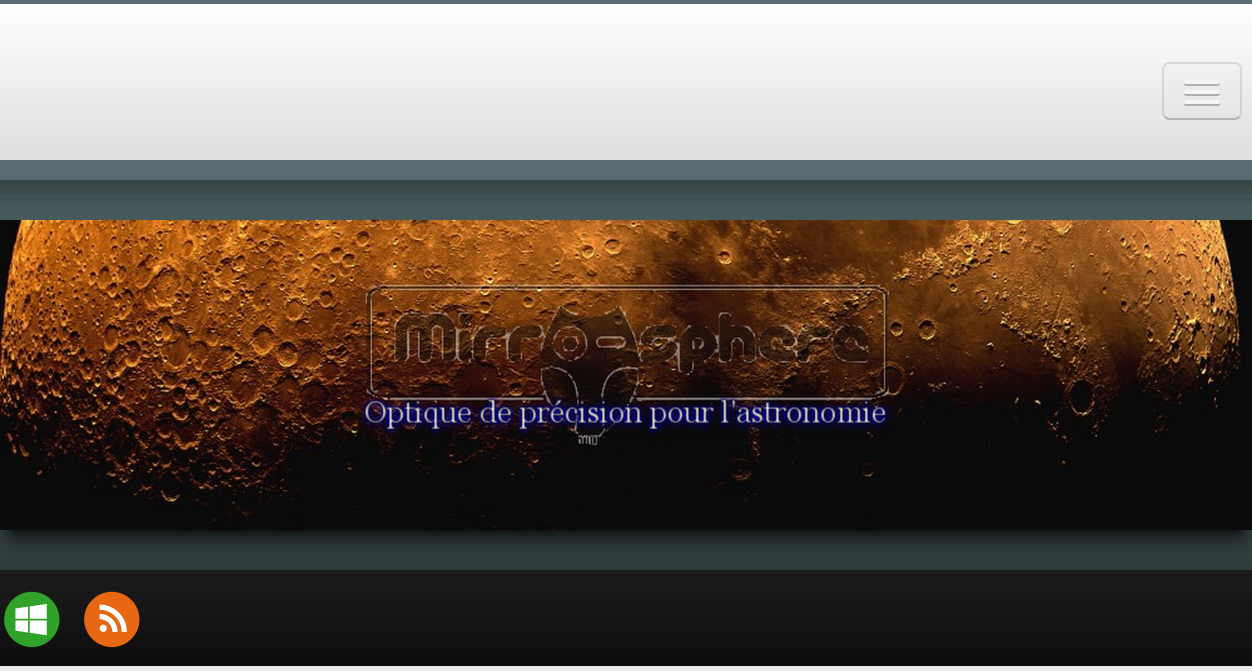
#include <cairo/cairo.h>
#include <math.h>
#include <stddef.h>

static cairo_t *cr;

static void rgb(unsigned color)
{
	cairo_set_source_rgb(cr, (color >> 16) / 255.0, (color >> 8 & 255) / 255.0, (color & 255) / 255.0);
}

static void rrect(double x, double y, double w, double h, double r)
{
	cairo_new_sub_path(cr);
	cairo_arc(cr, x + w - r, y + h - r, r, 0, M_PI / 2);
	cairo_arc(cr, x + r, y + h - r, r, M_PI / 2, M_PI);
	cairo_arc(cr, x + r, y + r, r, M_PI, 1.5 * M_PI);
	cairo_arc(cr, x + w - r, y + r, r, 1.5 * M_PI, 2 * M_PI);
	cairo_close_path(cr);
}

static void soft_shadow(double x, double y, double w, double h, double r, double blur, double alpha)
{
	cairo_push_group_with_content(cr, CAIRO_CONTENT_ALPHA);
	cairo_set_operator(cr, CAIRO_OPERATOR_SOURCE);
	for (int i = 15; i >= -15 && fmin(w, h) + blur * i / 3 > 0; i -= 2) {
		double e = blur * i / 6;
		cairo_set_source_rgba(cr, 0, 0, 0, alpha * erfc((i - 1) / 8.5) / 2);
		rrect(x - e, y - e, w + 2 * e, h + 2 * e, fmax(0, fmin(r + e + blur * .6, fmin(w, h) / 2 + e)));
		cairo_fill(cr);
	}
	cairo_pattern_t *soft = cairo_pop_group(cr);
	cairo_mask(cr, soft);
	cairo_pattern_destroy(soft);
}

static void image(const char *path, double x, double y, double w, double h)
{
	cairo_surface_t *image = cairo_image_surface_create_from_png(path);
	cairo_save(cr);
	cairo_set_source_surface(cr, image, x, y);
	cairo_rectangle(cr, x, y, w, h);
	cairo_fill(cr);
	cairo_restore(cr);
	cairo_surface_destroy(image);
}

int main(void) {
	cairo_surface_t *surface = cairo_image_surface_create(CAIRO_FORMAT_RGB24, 1252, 671);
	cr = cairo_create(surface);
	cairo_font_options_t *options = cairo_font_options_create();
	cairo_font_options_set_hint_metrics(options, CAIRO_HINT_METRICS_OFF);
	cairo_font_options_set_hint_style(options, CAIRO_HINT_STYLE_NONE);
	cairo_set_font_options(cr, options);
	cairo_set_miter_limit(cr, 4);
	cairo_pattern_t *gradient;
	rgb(0xebebeb);
	cairo_paint(cr);
	gradient = cairo_pattern_create_linear(626, 180, 626, 570);
	cairo_pattern_add_color_stop_rgba(gradient, 0, 0.298, 0.373, 0.38, 1);
	cairo_pattern_add_color_stop_rgba(gradient, 0.44, 0.247, 0.31, 0.314, 1);
	cairo_pattern_add_color_stop_rgba(gradient, 1, 0.184, 0.231, 0.235, 1);
	cairo_set_source(cr, gradient);
	cairo_pattern_destroy(gradient);
	cairo_rectangle(cr, 0, 180, 1252, 390);
	cairo_fill(cr);
	rgb(0x000000);
	soft_shadow(12, 248, 1228, 286, 0, 10, 1);
	image("img/1.png", 0, 220, 1252, 310);
	soft_shadow(-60, 4, 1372, 180, 0, 20, 0.5);
	gradient = cairo_pattern_create_linear(626, 4, 626, 160);
	cairo_pattern_add_color_stop_rgba(gradient, 0, 1, 1, 1, 1);
	cairo_pattern_add_color_stop_rgba(gradient, 1, 0.871, 0.871, 0.871, 1);
	cairo_set_source(cr, gradient);
	cairo_pattern_destroy(gradient);
	cairo_rectangle(cr, 0, 4, 1252, 156);
	cairo_fill(cr);
	rgb(0x5a6a72);
	cairo_rectangle(cr, 0, 0, 1252, 4);
	cairo_fill(cr);
	cairo_rectangle(cr, 0, 160, 1252, 20);
	cairo_fill(cr);
	rgb(0xededed);
	rrect(1162, 62, 80, 58, 8);
	cairo_fill(cr);
	cairo_save(cr);
	rrect(1162, 62, 80, 58, 8);
	cairo_clip(cr);
	gradient = cairo_pattern_create_linear(1202, 64, 1202, 118);
	cairo_pattern_add_color_stop_rgba(gradient, 0, 0.949, 0.949, 0.949, 1);
	cairo_pattern_add_color_stop_rgba(gradient, 1, 0.898, 0.898, 0.898, 1);
	cairo_set_source(cr, gradient);
	cairo_pattern_destroy(gradient);
	cairo_rectangle(cr, 1162, 64, 80, 54);
	cairo_fill(cr);
	cairo_restore(cr);
	cairo_new_path(cr);
	cairo_move_to(cr, 1239, 117);
	cairo_curve_to(cr, 1237.5, 118.5, 1236, 119, 1234, 119);
	cairo_line_to(cr, 1170, 119);
	cairo_curve_to(cr, 1168, 119, 1166.5, 118.5, 1165, 117);
	cairo_set_source_rgba(cr, 0, 0, 0, 0.25);
	cairo_stroke(cr);
	cairo_new_path(cr);
	cairo_move_to(cr, 1165, 117);
	cairo_curve_to(cr, 1163.5, 115.5, 1163, 114, 1163, 112);
	cairo_line_to(cr, 1163, 70);
	cairo_curve_to(cr, 1163, 68, 1163.5, 66.5, 1165, 65);
	cairo_curve_to(cr, 1166.5, 63.5, 1168, 63, 1170, 63);
	cairo_line_to(cr, 1234, 63);
	cairo_curve_to(cr, 1236, 63, 1237.5, 63.5, 1239, 65);
	cairo_curve_to(cr, 1240.5, 66.5, 1241, 68, 1241, 70);
	cairo_line_to(cr, 1241, 112);
	cairo_curve_to(cr, 1241, 114, 1240.5, 115.5, 1239, 117);
	cairo_set_source_rgba(cr, 0, 0, 0, 0.1);
	cairo_stroke(cr);
	rgb(0xb2b2b2);
	cairo_new_path(cr);
	cairo_move_to(cr, 1184.5, 83);
	cairo_curve_to(cr, 1182, 87, 1191, 86, 1191.5, 86);
	cairo_line_to(cr, 1212.5, 86);
	cairo_curve_to(cr, 1213, 86, 1222, 87, 1219.5, 83);
	cairo_curve_to(cr, 1219.5, 83.5, 1218.5, 84, 1218, 84);
	cairo_line_to(cr, 1186, 84);
	cairo_curve_to(cr, 1185.5, 84, 1184.5, 83.5, 1184.5, 83);
	cairo_close_path(cr);
	cairo_fill(cr);
	rgb(0xf5f5f5);
	rrect(1184, 80, 36, 4, 2);
	cairo_fill(cr);
	rgb(0xb0b0b0);
	cairo_new_path(cr);
	cairo_move_to(cr, 1184.5, 93);
	cairo_curve_to(cr, 1182, 97, 1191, 96, 1191.5, 96);
	cairo_line_to(cr, 1212.5, 96);
	cairo_curve_to(cr, 1213, 96, 1222, 97, 1219.5, 93);
	cairo_curve_to(cr, 1219.5, 93.5, 1218.5, 94, 1218, 94);
	cairo_line_to(cr, 1186, 94);
	cairo_curve_to(cr, 1185.5, 94, 1184.5, 93.5, 1184.5, 93);
	cairo_close_path(cr);
	cairo_fill(cr);
	rgb(0xf5f5f5);
	rrect(1184, 90, 36, 4, 2);
	cairo_fill(cr);
	rgb(0xaeaeae);
	cairo_new_path(cr);
	cairo_move_to(cr, 1184.5, 103);
	cairo_curve_to(cr, 1182, 107, 1191, 106, 1191.5, 106);
	cairo_line_to(cr, 1212.5, 106);
	cairo_curve_to(cr, 1213, 106, 1222, 107, 1219.5, 103);
	cairo_curve_to(cr, 1219.5, 103.5, 1218.5, 104, 1218, 104);
	cairo_line_to(cr, 1186, 104);
	cairo_curve_to(cr, 1185.5, 104, 1184.5, 103.5, 1184.5, 103);
	cairo_close_path(cr);
	cairo_fill(cr);
	rgb(0xf5f5f5);
	rrect(1184, 100, 36, 4, 2);
	cairo_fill(cr);
	gradient = cairo_pattern_create_linear(626, 570, 626, 666);
	cairo_pattern_add_color_stop_rgba(gradient, 0, 0.11, 0.11, 0.11, 1);
	cairo_pattern_add_color_stop_rgba(gradient, 1, 0.051, 0.051, 0.051, 1);
	cairo_set_source(cr, gradient);
	cairo_pattern_destroy(gradient);
	cairo_rectangle(cr, 0, 570, 1252, 96);
	cairo_fill(cr);
	image("img/2.png", 4, 591, 56, 57);
	image("img/3.png", 84, 591, 56, 57);
	cairo_surface_write_to_png(surface, "page.png");
	cairo_font_options_destroy(options);
	cairo_destroy(cr);
	cairo_surface_destroy(surface);
	return 0;
}
